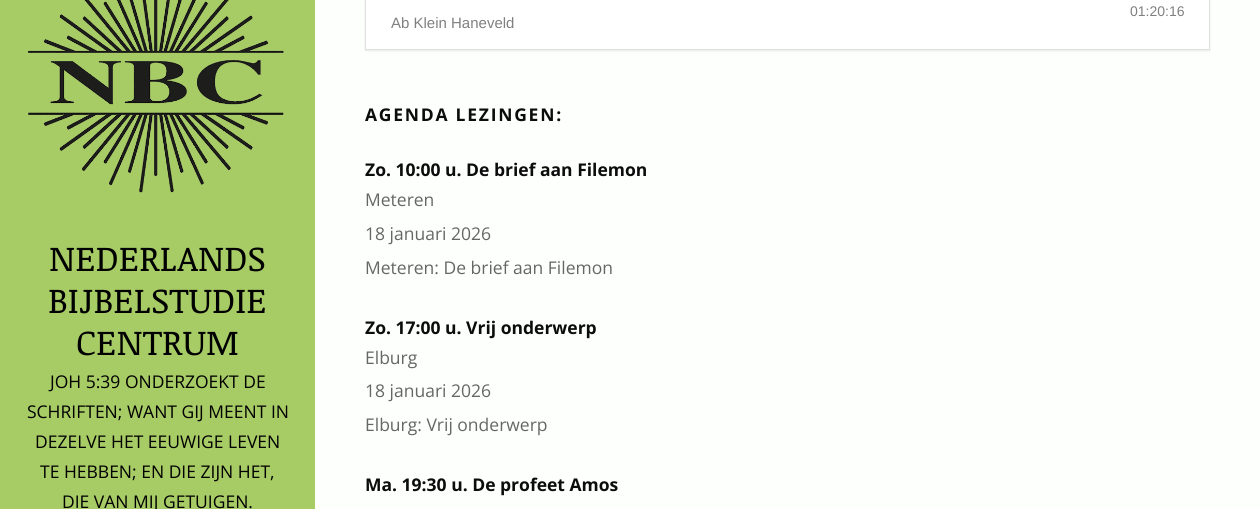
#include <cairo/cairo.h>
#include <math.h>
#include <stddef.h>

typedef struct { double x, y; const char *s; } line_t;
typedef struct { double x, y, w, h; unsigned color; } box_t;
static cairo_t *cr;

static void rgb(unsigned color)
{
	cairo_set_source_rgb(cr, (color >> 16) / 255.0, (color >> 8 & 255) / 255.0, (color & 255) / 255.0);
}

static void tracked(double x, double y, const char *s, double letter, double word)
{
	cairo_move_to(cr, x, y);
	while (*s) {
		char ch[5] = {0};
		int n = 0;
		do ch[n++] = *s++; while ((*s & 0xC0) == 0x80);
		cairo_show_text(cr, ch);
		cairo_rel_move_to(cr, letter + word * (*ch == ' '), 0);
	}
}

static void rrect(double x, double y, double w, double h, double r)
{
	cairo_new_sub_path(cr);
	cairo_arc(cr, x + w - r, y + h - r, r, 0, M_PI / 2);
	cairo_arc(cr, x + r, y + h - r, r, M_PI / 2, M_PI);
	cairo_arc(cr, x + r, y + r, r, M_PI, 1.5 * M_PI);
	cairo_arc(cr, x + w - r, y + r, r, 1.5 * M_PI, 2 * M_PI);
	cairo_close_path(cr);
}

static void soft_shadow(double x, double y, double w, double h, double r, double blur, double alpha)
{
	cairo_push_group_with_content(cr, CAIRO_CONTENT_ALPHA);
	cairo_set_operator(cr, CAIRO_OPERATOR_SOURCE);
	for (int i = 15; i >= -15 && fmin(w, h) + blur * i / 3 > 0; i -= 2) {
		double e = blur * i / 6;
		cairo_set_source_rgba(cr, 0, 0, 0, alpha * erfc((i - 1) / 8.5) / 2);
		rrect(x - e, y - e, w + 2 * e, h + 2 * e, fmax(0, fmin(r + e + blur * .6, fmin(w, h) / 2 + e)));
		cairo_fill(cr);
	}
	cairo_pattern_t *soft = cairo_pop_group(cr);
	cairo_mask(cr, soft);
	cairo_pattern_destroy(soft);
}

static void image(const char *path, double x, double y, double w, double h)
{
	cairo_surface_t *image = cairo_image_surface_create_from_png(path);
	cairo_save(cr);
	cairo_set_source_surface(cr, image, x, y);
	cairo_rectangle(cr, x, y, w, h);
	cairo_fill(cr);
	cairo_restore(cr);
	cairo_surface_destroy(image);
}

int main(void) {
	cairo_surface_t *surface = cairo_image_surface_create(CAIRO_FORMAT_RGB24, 1260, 509);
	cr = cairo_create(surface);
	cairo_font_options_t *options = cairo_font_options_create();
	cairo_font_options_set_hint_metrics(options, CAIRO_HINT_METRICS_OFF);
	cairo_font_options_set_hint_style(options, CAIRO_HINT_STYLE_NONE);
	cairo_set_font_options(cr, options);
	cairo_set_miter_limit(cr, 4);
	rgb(0xfcfffc);
	cairo_paint(cr);
	rgb(0xa7cb65);
	cairo_rectangle(cr, 0, 0, 315, 509);
	cairo_fill(cr);
	image("img/1.png", 28, 0, 256, 193);
	rgb(0x000000);
	soft_shadow(365, -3, 845, 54, 0, 1, 0.08);
	{
		static const box_t items[] = {
			{366, 0, 843, 49, 0xffffff},
			{1209, 0, 1, 50, 0xe0e0e0},
			{365, 49, 845, 1, 0xe0e0e0},
			{365, 0, 1, 50, 0xe0e0e0},
		};
		for (size_t i = 0; i < sizeof items / sizeof *items; i++) {
			rgb(items[i].color);
			cairo_rectangle(cr, items[i].x, items[i].y, items[i].w, items[i].h);
			cairo_fill(cr);
		}
	}
	cairo_select_font_face(cr, "Noticia Text", CAIRO_FONT_SLANT_NORMAL, CAIRO_FONT_WEIGHT_NORMAL);
	cairo_set_font_size(cr, 35);
	rgb(0x000000);
	{
		static const line_t items[] = {
			{49, 271, "NEDERLANDS"},
			{48, 313, "BIJBELSTUDIE"},
			{76, 355, "CENTRUM"},
		};
		for (size_t i = 0; i < sizeof items / sizeof *items; i++) {
			cairo_move_to(cr, items[i].x, items[i].y);
			cairo_show_text(cr, items[i].s);
		}
	}
	cairo_select_font_face(cr, "Open Sans", CAIRO_FONT_SLANT_NORMAL, CAIRO_FONT_WEIGHT_NORMAL);
	cairo_set_font_size(cr, 17.5);
	{
		static const line_t items[] = {
			{50, 388, "JOH 5:39 ONDERZOEKT DE"},
			{27, 418, "SCHRIFTEN; WANT GIJ MEENT IN"},
			{35, 448, "DEZELVE HET EEUWIGE LEVEN"},
			{40, 478, "TE HEBBEN; EN DIE ZIJN HET,"},
			{62, 508, "DIE VAN MIJ GETUIGEN."},
		};
		for (size_t i = 0; i < sizeof items / sizeof *items; i++) {
			cairo_move_to(cr, items[i].x, items[i].y);
			cairo_show_text(cr, items[i].s);
		}
	}
	cairo_select_font_face(cr, "Liberation Sans", CAIRO_FONT_SLANT_NORMAL, CAIRO_FONT_WEIGHT_NORMAL);
	cairo_set_font_size(cr, 14);
	rgb(0x808080);
	cairo_move_to(cr, 1130, 16);
	cairo_show_text(cr, "01:20:16");
	cairo_set_font_size(cr, 15);
	cairo_move_to(cr, 391, 28);
	cairo_show_text(cr, "Ab Klein Haneveld");
	cairo_select_font_face(cr, "Open Sans", CAIRO_FONT_SLANT_NORMAL, CAIRO_FONT_WEIGHT_BOLD);
	cairo_set_font_size(cr, 17.5);
	rgb(0x0c0c0c);
	tracked(365, 121, "AGENDA LEZINGEN:", 1.75, 0);
	cairo_move_to(cr, 365, 176);
	cairo_show_text(cr, "Zo. 10:00 u. De brief aan Filemon");
	cairo_select_font_face(cr, "Open Sans", CAIRO_FONT_SLANT_NORMAL, CAIRO_FONT_WEIGHT_NORMAL);
	rgb(0x666666);
	{
		static const line_t items[] = {
			{365, 206, "Meteren"},
			{365, 240, "18 januari 2026"},
			{365, 274, "Meteren: De brief aan Filemon"},
		};
		for (size_t i = 0; i < sizeof items / sizeof *items; i++) {
			cairo_move_to(cr, items[i].x, items[i].y);
			cairo_show_text(cr, items[i].s);
		}
	}
	cairo_select_font_face(cr, "Open Sans", CAIRO_FONT_SLANT_NORMAL, CAIRO_FONT_WEIGHT_BOLD);
	rgb(0x0c0c0c);
	cairo_move_to(cr, 365, 334);
	cairo_show_text(cr, "Zo. 17:00 u. Vrij onderwerp");
	cairo_select_font_face(cr, "Open Sans", CAIRO_FONT_SLANT_NORMAL, CAIRO_FONT_WEIGHT_NORMAL);
	rgb(0x666666);
	{
		static const line_t items[] = {
			{365, 364, "Elburg"},
			{365, 397, "18 januari 2026"},
			{365, 431, "Elburg: Vrij onderwerp"},
		};
		for (size_t i = 0; i < sizeof items / sizeof *items; i++) {
			cairo_move_to(cr, items[i].x, items[i].y);
			cairo_show_text(cr, items[i].s);
		}
	}
	cairo_select_font_face(cr, "Open Sans", CAIRO_FONT_SLANT_NORMAL, CAIRO_FONT_WEIGHT_BOLD);
	rgb(0x0c0c0c);
	cairo_move_to(cr, 365, 491);
	cairo_show_text(cr, "Ma. 19:30 u. De profeet Amos");
	cairo_surface_write_to_png(surface, "page.png");
	cairo_font_options_destroy(options);
	cairo_destroy(cr);
	cairo_surface_destroy(surface);
	return 0;
}
